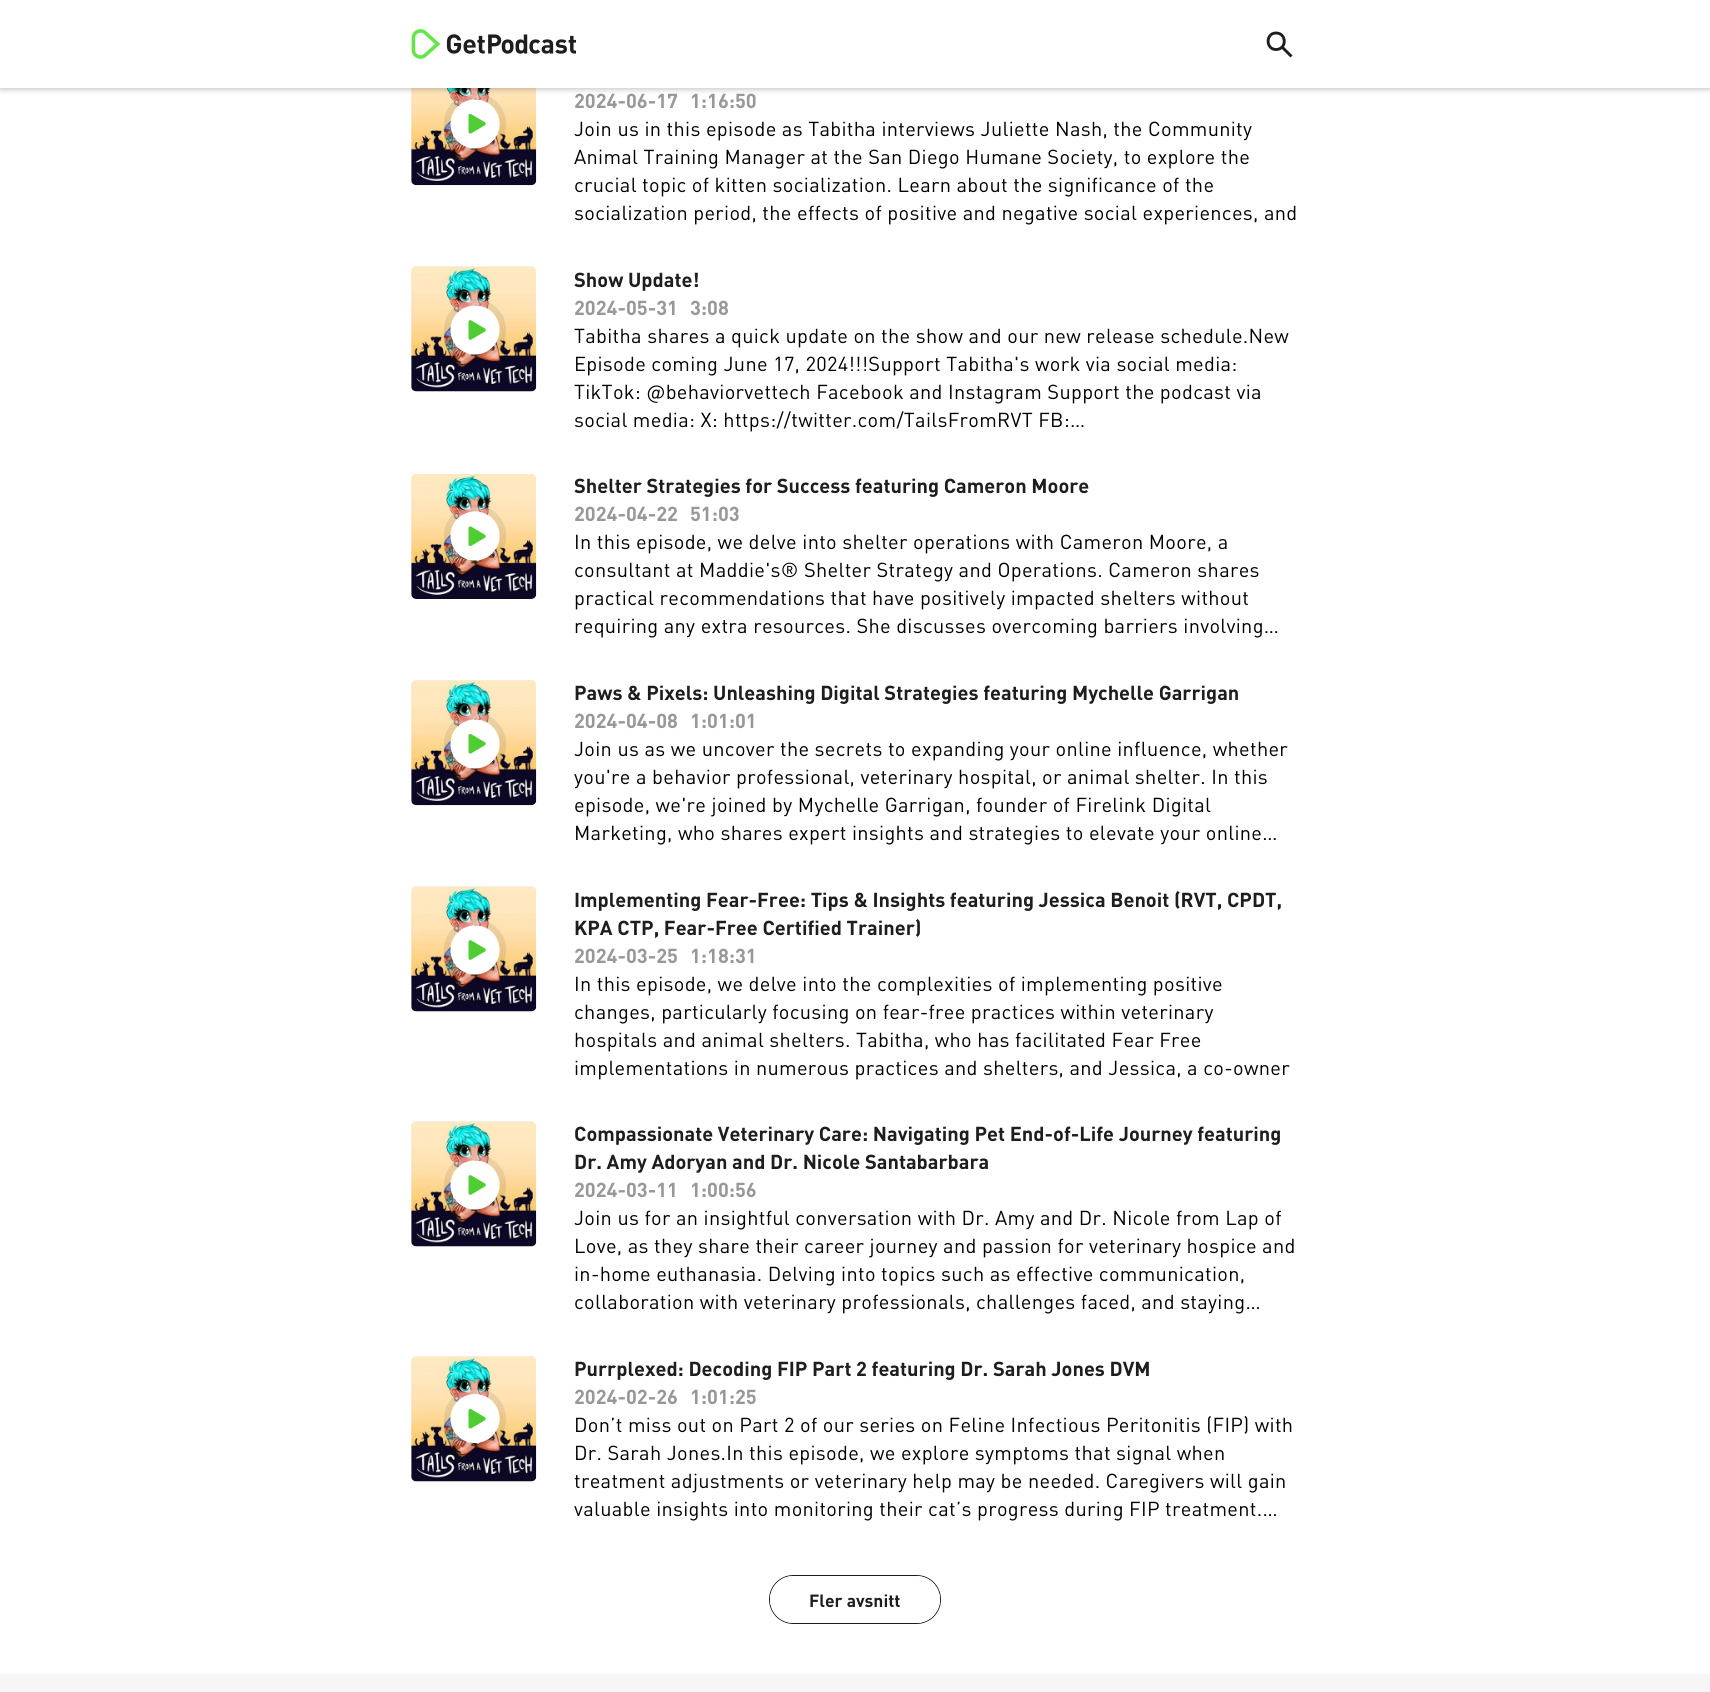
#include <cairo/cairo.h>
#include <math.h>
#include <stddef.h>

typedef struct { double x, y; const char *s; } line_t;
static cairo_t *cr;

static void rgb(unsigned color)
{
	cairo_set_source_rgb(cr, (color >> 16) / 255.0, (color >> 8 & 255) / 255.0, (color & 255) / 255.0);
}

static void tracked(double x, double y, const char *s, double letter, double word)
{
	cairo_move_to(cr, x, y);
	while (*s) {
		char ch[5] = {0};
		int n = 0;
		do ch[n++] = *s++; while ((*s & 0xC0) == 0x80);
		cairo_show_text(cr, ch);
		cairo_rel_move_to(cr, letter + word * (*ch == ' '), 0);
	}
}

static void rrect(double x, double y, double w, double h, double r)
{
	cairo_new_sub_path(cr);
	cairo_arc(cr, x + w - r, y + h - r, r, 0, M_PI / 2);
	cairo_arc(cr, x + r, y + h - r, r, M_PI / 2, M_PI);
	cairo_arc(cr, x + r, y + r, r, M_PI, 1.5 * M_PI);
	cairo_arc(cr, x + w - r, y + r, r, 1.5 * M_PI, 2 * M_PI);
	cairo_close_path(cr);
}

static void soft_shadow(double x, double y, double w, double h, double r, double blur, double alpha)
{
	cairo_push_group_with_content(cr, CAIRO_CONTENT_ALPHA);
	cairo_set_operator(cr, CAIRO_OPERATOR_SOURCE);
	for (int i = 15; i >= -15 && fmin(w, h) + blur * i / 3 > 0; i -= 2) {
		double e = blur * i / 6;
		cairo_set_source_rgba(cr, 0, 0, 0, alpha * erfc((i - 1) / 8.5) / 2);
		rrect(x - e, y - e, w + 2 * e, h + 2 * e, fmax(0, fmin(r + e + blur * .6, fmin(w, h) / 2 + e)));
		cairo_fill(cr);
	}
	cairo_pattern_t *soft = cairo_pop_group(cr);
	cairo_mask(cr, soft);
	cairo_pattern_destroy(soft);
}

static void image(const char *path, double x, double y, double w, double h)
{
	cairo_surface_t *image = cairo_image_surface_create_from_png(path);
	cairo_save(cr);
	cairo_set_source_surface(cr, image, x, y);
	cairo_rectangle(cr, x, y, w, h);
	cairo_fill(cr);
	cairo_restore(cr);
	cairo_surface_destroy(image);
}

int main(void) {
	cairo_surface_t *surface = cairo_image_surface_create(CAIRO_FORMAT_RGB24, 1710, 1692);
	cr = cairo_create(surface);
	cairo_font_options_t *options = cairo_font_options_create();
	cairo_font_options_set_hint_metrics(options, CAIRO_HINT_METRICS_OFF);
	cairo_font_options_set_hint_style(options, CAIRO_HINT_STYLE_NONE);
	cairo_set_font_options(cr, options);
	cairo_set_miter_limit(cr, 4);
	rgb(0xffffff);
	cairo_paint(cr);
	rgb(0xf0f0f0);
	rrect(411, 60, 125, 125, 5);
	cairo_fill(cr);
	image("img/2.png", 411, 88, 126, 98);
	image("img/3.png", 450, 99, 50, 50);
	cairo_arc(cr, 475, 124, 28, 0, 2 * M_PI);
	cairo_set_source_rgba(cr, 0, 0, 0, 0.08);
	cairo_set_line_width(cr, 6.2);
	cairo_stroke(cr);
	rgb(0x000000);
	soft_shadow(0, 3, 1710, 87, 0, 2.5, 0.2);
	rgb(0xffffff);
	cairo_rectangle(cr, 0, 0, 1710, 88);
	cairo_fill(cr);
	image("img/1.png", 411, 29, 165, 30);
	cairo_new_path(cr);
	cairo_move_to(cr, 1276, 49.5);
	cairo_curve_to(cr, 1265.5, 49.5, 1265.5, 33, 1276, 33);
	cairo_curve_to(cr, 1287, 33, 1287, 49.5, 1276, 49.5);
	cairo_close_path(cr);
	cairo_move_to(cr, 1282.5, 47.5);
	cairo_line_to(cr, 1291.5, 56.5);
	cairo_close_path(cr);
	rgb(0x1e1e1e);
	cairo_set_line_width(cr, 2.9);
	cairo_stroke(cr);
	rgb(0xf0f0f0);
	rrect(411, 266, 125, 125, 5);
	cairo_fill(cr);
	image("img/4.png", 411, 266, 126, 126);
	image("img/5.png", 450, 305, 50, 50);
	cairo_arc(cr, 475, 330, 28, 0, 2 * M_PI);
	cairo_set_source_rgba(cr, 0, 0, 0, 0.08);
	cairo_set_line_width(cr, 6.2);
	cairo_stroke(cr);
	rgb(0xf0f0f0);
	rrect(411, 474, 125, 125, 5);
	cairo_fill(cr);
	image("img/6.png", 411, 474, 126, 125);
	image("img/7.png", 450, 511, 50, 50);
	cairo_arc(cr, 475, 536, 28, 0, 2 * M_PI);
	cairo_set_source_rgba(cr, 0, 0, 0, 0.08);
	cairo_stroke(cr);
	rgb(0xf0f0f0);
	rrect(411, 680, 125, 125, 5);
	cairo_fill(cr);
	image("img/8.png", 411, 680, 126, 126);
	image("img/9.png", 450, 719, 50, 50);
	cairo_arc(cr, 475, 744, 28, 0, 2 * M_PI);
	cairo_set_source_rgba(cr, 0, 0, 0, 0.08);
	cairo_stroke(cr);
	rgb(0xf0f0f0);
	rrect(411, 886, 125, 125, 5);
	cairo_fill(cr);
	image("img/10.png", 411, 886, 126, 126);
	image("img/5.png", 450, 925, 50, 50);
	cairo_arc(cr, 475, 950, 28, 0, 2 * M_PI);
	cairo_set_source_rgba(cr, 0, 0, 0, 0.08);
	cairo_stroke(cr);
	rgb(0xf0f0f0);
	rrect(411, 1121, 125, 125, 5);
	cairo_fill(cr);
	image("img/11.png", 411, 1121, 126, 126);
	image("img/12.png", 450, 1160, 50, 50);
	cairo_arc(cr, 475, 1185, 28, 0, 2 * M_PI);
	cairo_set_source_rgba(cr, 0, 0, 0, 0.08);
	cairo_stroke(cr);
	rgb(0xf0f0f0);
	rrect(411, 1356, 125, 125, 5);
	cairo_fill(cr);
	image("img/13.png", 411, 1356, 126, 126);
	image("img/14.png", 450, 1394, 50, 49);
	cairo_arc(cr, 475, 1419, 28, 0, 2 * M_PI);
	cairo_set_source_rgba(cr, 0, 0, 0, 0.08);
	cairo_stroke(cr);
	rrect(769.5, 1575.5, 171, 48, 24);
	rgb(0x1e1e1e);
	cairo_set_line_width(cr, 1);
	cairo_stroke(cr);
	rrect(770.5, 1576.5, 169, 46, 23);
	rgb(0xffffff);
	cairo_stroke(cr);
	rgb(0xf6f6f6);
	cairo_rectangle(cr, 0, 1674, 1710, 18);
	cairo_fill(cr);
	cairo_select_font_face(cr, "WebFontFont", CAIRO_FONT_SLANT_NORMAL, CAIRO_FONT_WEIGHT_BOLD);
	cairo_set_font_size(cr, 20);
	rgb(0x989898);
	cairo_move_to(cr, 574, 108);
	cairo_show_text(cr, "2024-06-17");
	cairo_move_to(cr, 690, 108);
	cairo_show_text(cr, "1:16:50");
	cairo_select_font_face(cr, "WebFontFont", CAIRO_FONT_SLANT_NORMAL, CAIRO_FONT_WEIGHT_NORMAL);
	rgb(0x000000);
	{
		static const line_t items[] = {
			{574, 136, "Join us in this episode as Tabitha interviews Juliette Nash, the Community"},
			{574, 164, "Animal Training Manager at the San Diego Humane Society, to explore the"},
			{574, 192, "crucial topic of kitten socialization. Learn about the significance of the"},
			{574, 220, "socialization period, the effects of positive and negative social experiences, and"},
		};
		for (size_t i = 0; i < sizeof items / sizeof *items; i++) {
			tracked(items[i].x, items[i].y, items[i].s, 0.3, 0);
		}
	}
	cairo_select_font_face(cr, "WebFontFont", CAIRO_FONT_SLANT_NORMAL, CAIRO_FONT_WEIGHT_BOLD);
	rgb(0x1e1e1e);
	cairo_move_to(cr, 574, 287);
	cairo_show_text(cr, "Show Update!");
	rgb(0x989898);
	cairo_move_to(cr, 574, 315);
	cairo_show_text(cr, "2024-05-31");
	cairo_move_to(cr, 690, 315);
	cairo_show_text(cr, "3:08");
	cairo_select_font_face(cr, "WebFontFont", CAIRO_FONT_SLANT_NORMAL, CAIRO_FONT_WEIGHT_NORMAL);
	rgb(0x000000);
	{
		static const line_t items[] = {
			{574, 343, "Tabitha shares a quick update on the show and our new release schedule.New"},
			{574, 371, "Episode coming June 17, 2024!!!Support Tabitha's work via social media:"},
			{574, 399, "TikTok: @behaviorvettech Facebook and Instagram Support the podcast via"},
			{574, 427, "social media: X: https://twitter.com/TailsFromRVT FB:…"},
		};
		for (size_t i = 0; i < sizeof items / sizeof *items; i++) {
			tracked(items[i].x, items[i].y, items[i].s, 0.3, 0);
		}
	}
	cairo_select_font_face(cr, "WebFontFont", CAIRO_FONT_SLANT_NORMAL, CAIRO_FONT_WEIGHT_BOLD);
	rgb(0x1e1e1e);
	cairo_move_to(cr, 574, 493);
	cairo_show_text(cr, "Shelter Strategies for Success featuring Cameron Moore");
	rgb(0x989898);
	cairo_move_to(cr, 574, 521);
	cairo_show_text(cr, "2024-04-22");
	cairo_move_to(cr, 690, 521);
	cairo_show_text(cr, "51:03");
	cairo_select_font_face(cr, "WebFontFont", CAIRO_FONT_SLANT_NORMAL, CAIRO_FONT_WEIGHT_NORMAL);
	rgb(0x000000);
	{
		static const line_t items[] = {
			{574, 549, "In this episode, we delve into shelter operations with Cameron Moore, a"},
			{574, 577, "consultant at Maddie's® Shelter Strategy and Operations. Cameron shares"},
			{574, 605, "practical recommendations that have positively impacted shelters without"},
			{574, 633, "requiring any extra resources. She discusses overcoming barriers involving…"},
		};
		for (size_t i = 0; i < sizeof items / sizeof *items; i++) {
			tracked(items[i].x, items[i].y, items[i].s, 0.3, 0);
		}
	}
	cairo_select_font_face(cr, "WebFontFont", CAIRO_FONT_SLANT_NORMAL, CAIRO_FONT_WEIGHT_BOLD);
	rgb(0x1e1e1e);
	cairo_move_to(cr, 574, 700);
	cairo_show_text(cr, "Paws & Pixels: Unleashing Digital Strategies featuring Mychelle Garrigan");
	rgb(0x989898);
	cairo_move_to(cr, 574, 728);
	cairo_show_text(cr, "2024-04-08");
	cairo_move_to(cr, 690, 728);
	cairo_show_text(cr, "1:01:01");
	cairo_select_font_face(cr, "WebFontFont", CAIRO_FONT_SLANT_NORMAL, CAIRO_FONT_WEIGHT_NORMAL);
	rgb(0x000000);
	{
		static const line_t items[] = {
			{574, 756, "Join us as we uncover the secrets to expanding your online influence, whether"},
			{574, 784, "you're a behavior professional, veterinary hospital, or animal shelter. In this"},
			{574, 812, "episode, we're joined by Mychelle Garrigan, founder of Firelink Digital"},
			{574, 840, "Marketing, who shares expert insights and strategies to elevate your online…"},
		};
		for (size_t i = 0; i < sizeof items / sizeof *items; i++) {
			tracked(items[i].x, items[i].y, items[i].s, 0.3, 0);
		}
	}
	cairo_select_font_face(cr, "WebFontFont", CAIRO_FONT_SLANT_NORMAL, CAIRO_FONT_WEIGHT_BOLD);
	rgb(0x1e1e1e);
	cairo_move_to(cr, 574, 907);
	cairo_show_text(cr, "Implementing Fear-Free: Tips & Insights featuring Jessica Benoit (RVT, CPDT,");
	cairo_move_to(cr, 574, 935);
	cairo_show_text(cr, "KPA CTP, Fear-Free Certified Trainer)");
	rgb(0x989898);
	cairo_move_to(cr, 574, 963);
	cairo_show_text(cr, "2024-03-25");
	cairo_move_to(cr, 690, 963);
	cairo_show_text(cr, "1:18:31");
	cairo_select_font_face(cr, "WebFontFont", CAIRO_FONT_SLANT_NORMAL, CAIRO_FONT_WEIGHT_NORMAL);
	rgb(0x000000);
	{
		static const line_t items[] = {
			{574, 991, "In this episode, we delve into the complexities of implementing positive"},
			{574, 1019, "changes, particularly focusing on fear-free practices within veterinary"},
			{574, 1047, "hospitals and animal shelters. Tabitha, who has facilitated Fear Free"},
			{574, 1075, "implementations in numerous practices and shelters, and Jessica, a co-owner"},
		};
		for (size_t i = 0; i < sizeof items / sizeof *items; i++) {
			tracked(items[i].x, items[i].y, items[i].s, 0.3, 0);
		}
	}
	cairo_select_font_face(cr, "WebFontFont", CAIRO_FONT_SLANT_NORMAL, CAIRO_FONT_WEIGHT_BOLD);
	rgb(0x1e1e1e);
	cairo_move_to(cr, 574, 1141);
	cairo_show_text(cr, "Compassionate Veterinary Care: Navigating Pet End-of-Life Journey featuring");
	cairo_move_to(cr, 574, 1169);
	cairo_show_text(cr, "Dr. Amy Adoryan and Dr. Nicole Santabarbara");
	rgb(0x989898);
	cairo_move_to(cr, 574, 1197);
	cairo_show_text(cr, "2024-03-11");
	cairo_move_to(cr, 690, 1197);
	cairo_show_text(cr, "1:00:56");
	cairo_select_font_face(cr, "WebFontFont", CAIRO_FONT_SLANT_NORMAL, CAIRO_FONT_WEIGHT_NORMAL);
	rgb(0x000000);
	{
		static const line_t items[] = {
			{574, 1225, "Join us for an insightful conversation with Dr. Amy and Dr. Nicole from Lap of"},
			{574, 1253, "Love, as they share their career journey and passion for veterinary hospice and"},
			{574, 1281, "in-home euthanasia. Delving into topics such as effective communication,"},
			{574, 1309, "collaboration with veterinary professionals, challenges faced, and staying…"},
		};
		for (size_t i = 0; i < sizeof items / sizeof *items; i++) {
			tracked(items[i].x, items[i].y, items[i].s, 0.3, 0);
		}
	}
	cairo_select_font_face(cr, "WebFontFont", CAIRO_FONT_SLANT_NORMAL, CAIRO_FONT_WEIGHT_BOLD);
	rgb(0x1e1e1e);
	cairo_move_to(cr, 574, 1376);
	cairo_show_text(cr, "Purrplexed: Decoding FIP Part 2 featuring Dr. Sarah Jones DVM");
	rgb(0x989898);
	cairo_move_to(cr, 574, 1404);
	cairo_show_text(cr, "2024-02-26");
	cairo_move_to(cr, 690, 1404);
	cairo_show_text(cr, "1:01:25");
	cairo_select_font_face(cr, "WebFontFont", CAIRO_FONT_SLANT_NORMAL, CAIRO_FONT_WEIGHT_NORMAL);
	rgb(0x000000);
	{
		static const line_t items[] = {
			{574, 1432, "Don’t miss out on Part 2 of our series on Feline Infectious Peritonitis (FIP) with"},
			{574, 1460, "Dr. Sarah Jones.In this episode, we explore symptoms that signal when"},
			{574, 1488, "treatment adjustments or veterinary help may be needed. Caregivers will gain"},
			{574, 1516, "valuable insights into monitoring their cat’s progress during FIP treatment.…"},
		};
		for (size_t i = 0; i < sizeof items / sizeof *items; i++) {
			tracked(items[i].x, items[i].y, items[i].s, 0.3, 0);
		}
	}
	cairo_select_font_face(cr, "WebFontFont", CAIRO_FONT_SLANT_NORMAL, CAIRO_FONT_WEIGHT_BOLD);
	cairo_set_font_size(cr, 17.5);
	rgb(0x1e1e1e);
	cairo_move_to(cr, 809, 1607);
	cairo_show_text(cr, "Fler avsnitt");
	cairo_surface_write_to_png(surface, "page.png");
	cairo_font_options_destroy(options);
	cairo_destroy(cr);
	cairo_surface_destroy(surface);
	return 0;
}
